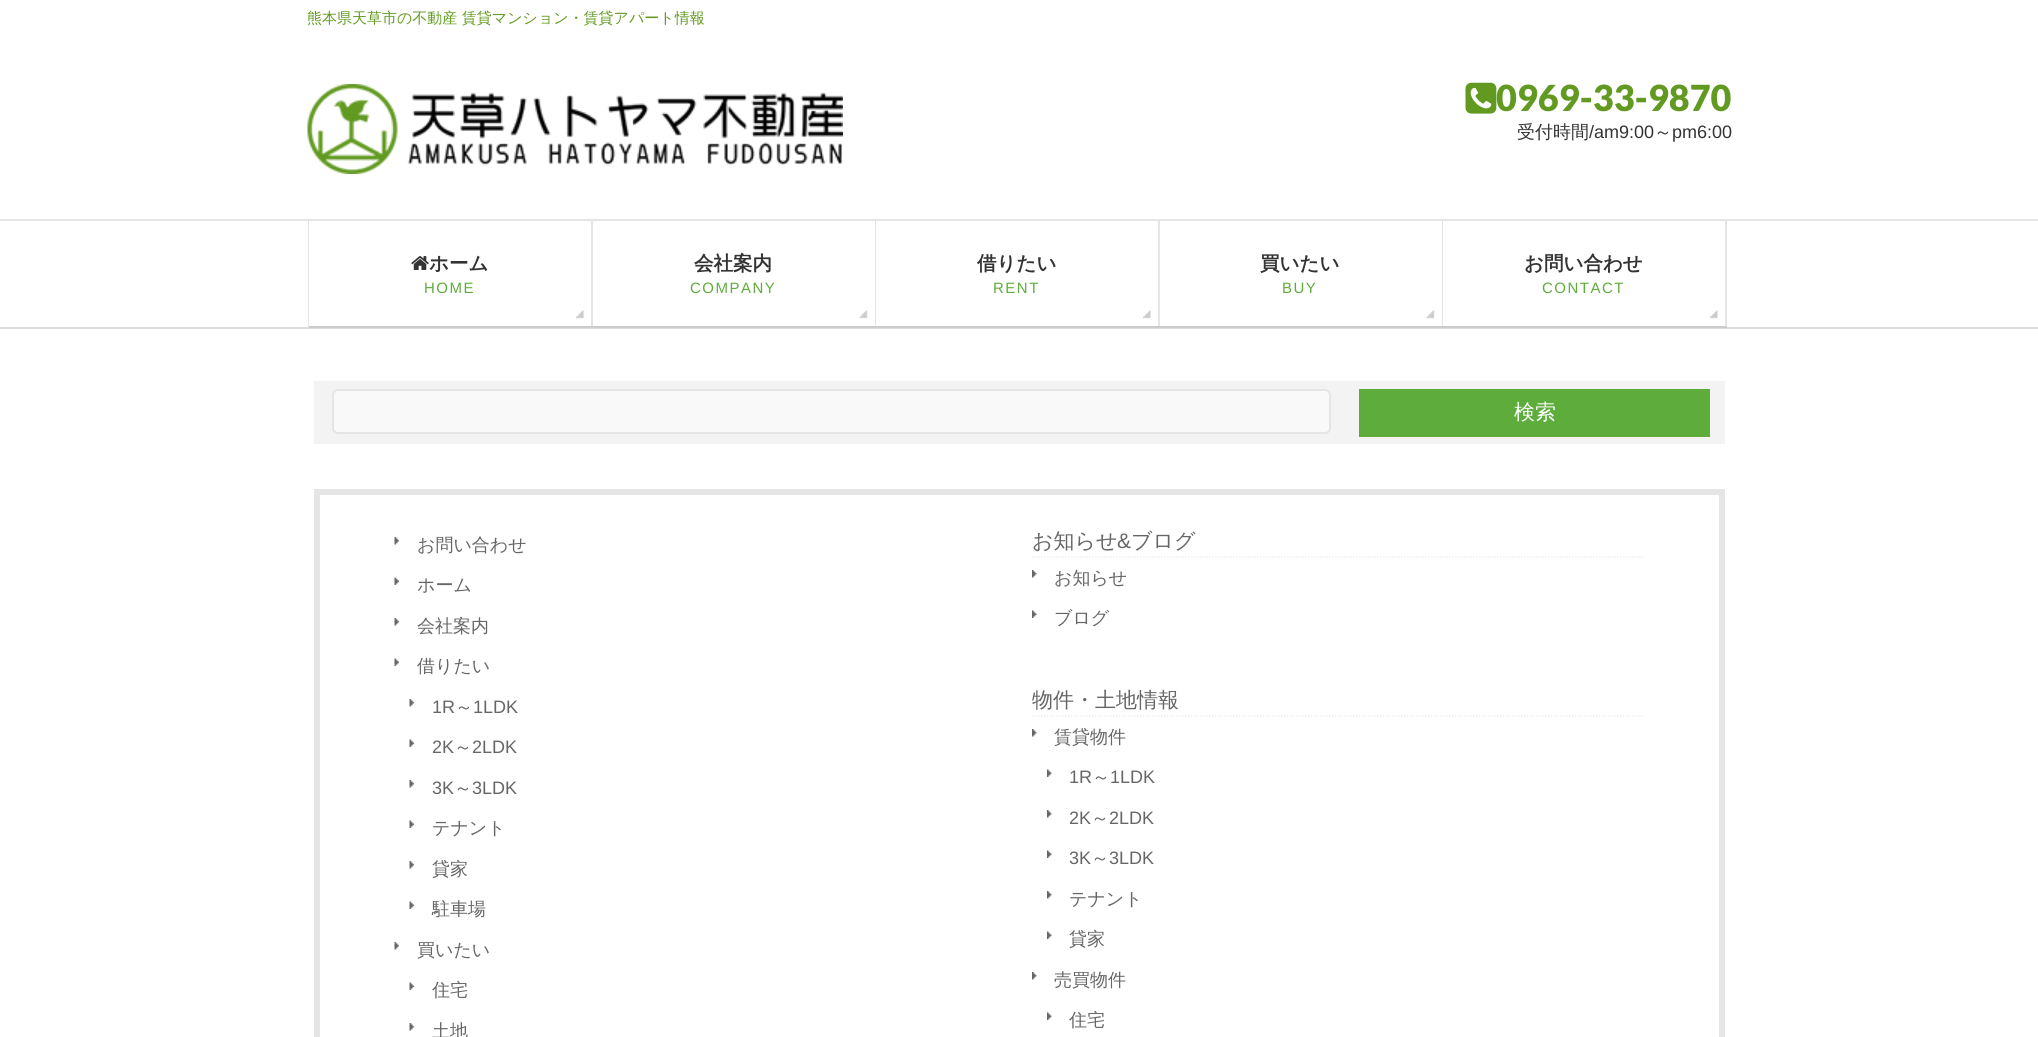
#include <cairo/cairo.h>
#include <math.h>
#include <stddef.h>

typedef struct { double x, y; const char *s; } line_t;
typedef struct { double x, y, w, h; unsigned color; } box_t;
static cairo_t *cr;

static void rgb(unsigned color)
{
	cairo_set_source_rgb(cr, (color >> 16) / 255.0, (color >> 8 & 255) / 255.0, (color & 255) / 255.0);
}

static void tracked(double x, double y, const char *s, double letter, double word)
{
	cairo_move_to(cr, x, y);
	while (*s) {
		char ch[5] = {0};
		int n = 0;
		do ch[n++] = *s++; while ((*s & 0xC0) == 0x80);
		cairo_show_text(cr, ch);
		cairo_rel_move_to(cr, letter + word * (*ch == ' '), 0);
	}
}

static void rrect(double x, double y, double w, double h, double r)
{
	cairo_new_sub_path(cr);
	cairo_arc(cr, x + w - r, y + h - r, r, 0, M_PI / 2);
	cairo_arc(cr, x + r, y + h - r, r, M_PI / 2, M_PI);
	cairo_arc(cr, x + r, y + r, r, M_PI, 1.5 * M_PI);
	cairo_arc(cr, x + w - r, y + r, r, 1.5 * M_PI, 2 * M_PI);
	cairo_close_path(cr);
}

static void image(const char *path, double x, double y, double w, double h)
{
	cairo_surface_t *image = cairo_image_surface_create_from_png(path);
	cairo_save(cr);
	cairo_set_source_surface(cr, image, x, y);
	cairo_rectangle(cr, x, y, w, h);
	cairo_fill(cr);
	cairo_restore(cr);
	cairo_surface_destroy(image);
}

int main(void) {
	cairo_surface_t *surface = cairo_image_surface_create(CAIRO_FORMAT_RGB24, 2038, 1037);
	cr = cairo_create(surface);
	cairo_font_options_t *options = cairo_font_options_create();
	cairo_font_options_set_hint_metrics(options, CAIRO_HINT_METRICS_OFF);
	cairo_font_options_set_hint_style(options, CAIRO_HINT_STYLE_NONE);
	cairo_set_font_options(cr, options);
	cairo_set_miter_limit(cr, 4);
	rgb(0xffffff);
	cairo_paint(cr);
	image("img/1.png", 307, 84, 536, 90);
	image("img/2.png", 1465, 82, 32, 32);
	{
		static const box_t items[] = {
			{0, 219, 2038, 2, 0xe5e5e5},
			{0, 327, 2038, 2, 0xdddddd},
			{308, 221, 1, 106, 0xe5e5e5},
		};
		for (size_t i = 0; i < sizeof items / sizeof *items; i++) {
			rgb(items[i].color);
			cairo_rectangle(cr, items[i].x, items[i].y, items[i].w, items[i].h);
			cairo_fill(cr);
		}
	}
	image("img/3.png", 576, 310, 8, 9);
	cairo_rectangle(cr, 591, 221, 2, 106);
	cairo_fill(cr);
	rgb(0xcccccc);
	cairo_rectangle(cr, 309, 326, 284, 2);
	cairo_fill(cr);
	image("img/4.png", 411, 256, 18, 14);
	image("img/5.png", 859, 310, 9, 9);
	rgb(0xe5e5e5);
	cairo_rectangle(cr, 875, 221, 1, 106);
	cairo_fill(cr);
	rgb(0xcccccc);
	cairo_rectangle(cr, 593, 326, 283, 2);
	cairo_fill(cr);
	image("img/3.png", 1143, 310, 8, 9);
	rgb(0xe5e5e5);
	cairo_rectangle(cr, 1158, 221, 2, 106);
	cairo_fill(cr);
	rgb(0xcccccc);
	cairo_rectangle(cr, 876, 326, 284, 2);
	cairo_fill(cr);
	image("img/6.png", 1426, 310, 9, 9);
	rgb(0xe5e5e5);
	cairo_rectangle(cr, 1442, 221, 1, 106);
	cairo_fill(cr);
	rgb(0xcccccc);
	cairo_rectangle(cr, 1160, 326, 283, 2);
	cairo_fill(cr);
	image("img/7.png", 1710, 310, 8, 9);
	{
		static const box_t items[] = {
			{1725, 221, 2, 106, 0xe5e5e5},
			{1443, 326, 284, 2, 0xcccccc},
			{314, 381, 1411, 63, 0xf3f3f3},
		};
		for (size_t i = 0; i < sizeof items / sizeof *items; i++) {
			rgb(items[i].color);
			cairo_rectangle(cr, items[i].x, items[i].y, items[i].w, items[i].h);
			cairo_fill(cr);
		}
	}
	rgb(0xf9f9f9);
	rrect(333, 390, 997, 43, 5);
	cairo_fill_preserve(cr);
	rgb(0xe5e5e5);
	cairo_stroke(cr);
	rgb(0x5ead3c);
	cairo_rectangle(cr, 1359, 389, 351, 48);
	cairo_fill(cr);
	cairo_rectangle(cr, 317, 492, 1405, 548);
	rgb(0xe5e5e5);
	cairo_set_line_width(cr, 6);
	cairo_stroke(cr);
	image("img/8.png", 394, 537, 5, 8);
	image("img/9.png", 394, 577, 5, 8);
	image("img/8.png", 394, 618, 5, 8);
	image("img/9.png", 394, 658, 5, 8);
	image("img/8.png", 409, 699, 5, 8);
	image("img/9.png", 409, 739, 5, 8);
	image("img/8.png", 409, 780, 5, 8);
	image("img/9.png", 409, 820, 5, 8);
	image("img/8.png", 409, 861, 5, 8);
	image("img/9.png", 409, 901, 5, 8);
	image("img/8.png", 394, 942, 5, 8);
	image("img/9.png", 409, 982, 5, 8);
	image("img/8.png", 409, 1023, 5, 8);
	cairo_new_path(cr);
	cairo_move_to(cr, 1032, 557);
	cairo_line_to(cr, 1644, 557);
	rgb(0xeeeeee);
	cairo_set_line_width(cr, 1.5);
	cairo_set_dash(cr, (double[]){1.5, 1.5}, 2, 0);
	cairo_stroke(cr);
	image("img/10.png", 1032, 570, 5, 8);
	image("img/11.png", 1032, 610, 5, 8);
	cairo_new_path(cr);
	cairo_move_to(cr, 1032, 716);
	cairo_line_to(cr, 1644, 716);
	cairo_stroke(cr);
	image("img/10.png", 1032, 729, 5, 8);
	image("img/11.png", 1047, 769, 5, 8);
	image("img/10.png", 1047, 810, 5, 8);
	image("img/11.png", 1047, 850, 5, 8);
	image("img/10.png", 1047, 891, 5, 8);
	image("img/11.png", 1047, 931, 5, 8);
	image("img/10.png", 1032, 972, 5, 8);
	image("img/11.png", 1047, 1012, 5, 8);
	cairo_select_font_face(cr, "WenQuanYi Zen Hei Medium", CAIRO_FONT_SLANT_NORMAL, CAIRO_FONT_WEIGHT_NORMAL);
	cairo_set_font_size(cr, 15);
	rgb(0x629a21);
	cairo_move_to(cr, 307, 23);
	cairo_show_text(cr, "熊本県天草市の不動産 賃貸マンション・賃貸アパート情報");
	cairo_select_font_face(cr, "Lato Black", CAIRO_FONT_SLANT_NORMAL, CAIRO_FONT_WEIGHT_NORMAL);
	cairo_set_font_size(cr, 36);
	cairo_move_to(cr, 1496, 111);
	cairo_show_text(cr, "0969-33-9870");
	cairo_select_font_face(cr, "WenQuanYi Zen Hei Medium", CAIRO_FONT_SLANT_NORMAL, CAIRO_FONT_WEIGHT_NORMAL);
	cairo_set_font_size(cr, 18);
	rgb(0x333333);
	cairo_move_to(cr, 1517, 138);
	cairo_show_text(cr, "受付時間");
	cairo_select_font_face(cr, "Liberation Sans", CAIRO_FONT_SLANT_NORMAL, CAIRO_FONT_WEIGHT_NORMAL);
	cairo_move_to(cr, 1589, 138);
	cairo_show_text(cr, "/am9:00");
	cairo_select_font_face(cr, "WenQuanYi Zen Hei Medium", CAIRO_FONT_SLANT_NORMAL, CAIRO_FONT_WEIGHT_NORMAL);
	cairo_move_to(cr, 1654, 138);
	cairo_show_text(cr, "～");
	cairo_select_font_face(cr, "Liberation Sans", CAIRO_FONT_SLANT_NORMAL, CAIRO_FONT_WEIGHT_NORMAL);
	cairo_move_to(cr, 1672, 138);
	cairo_show_text(cr, "pm6:00");
	cairo_select_font_face(cr, "WenQuanYi Zen Hei", CAIRO_FONT_SLANT_NORMAL, CAIRO_FONT_WEIGHT_BOLD);
	cairo_set_font_size(cr, 19.5);
	cairo_move_to(cr, 429, 270);
	cairo_show_text(cr, "ホーム");
	cairo_select_font_face(cr, "Liberation Sans", CAIRO_FONT_SLANT_NORMAL, CAIRO_FONT_WEIGHT_NORMAL);
	cairo_set_font_size(cr, 15);
	rgb(0x5ead3c);
	tracked(424, 293, "HOME", 1.5, 0);
	cairo_select_font_face(cr, "WenQuanYi Zen Hei", CAIRO_FONT_SLANT_NORMAL, CAIRO_FONT_WEIGHT_BOLD);
	cairo_set_font_size(cr, 19.5);
	rgb(0x333333);
	cairo_move_to(cr, 694, 270);
	cairo_show_text(cr, "会社案内");
	cairo_select_font_face(cr, "Liberation Sans", CAIRO_FONT_SLANT_NORMAL, CAIRO_FONT_WEIGHT_NORMAL);
	cairo_set_font_size(cr, 15);
	rgb(0x5ead3c);
	tracked(690, 293, "COMPANY", 1.5, 0);
	cairo_select_font_face(cr, "WenQuanYi Zen Hei", CAIRO_FONT_SLANT_NORMAL, CAIRO_FONT_WEIGHT_BOLD);
	cairo_set_font_size(cr, 19.5);
	rgb(0x333333);
	cairo_move_to(cr, 977, 270);
	cairo_show_text(cr, "借りたい");
	cairo_select_font_face(cr, "Liberation Sans", CAIRO_FONT_SLANT_NORMAL, CAIRO_FONT_WEIGHT_NORMAL);
	cairo_set_font_size(cr, 15);
	rgb(0x5ead3c);
	tracked(993, 293, "RENT", 1.5, 0);
	cairo_select_font_face(cr, "WenQuanYi Zen Hei", CAIRO_FONT_SLANT_NORMAL, CAIRO_FONT_WEIGHT_BOLD);
	cairo_set_font_size(cr, 19.5);
	rgb(0x333333);
	cairo_move_to(cr, 1260, 270);
	cairo_show_text(cr, "買いたい");
	cairo_select_font_face(cr, "Liberation Sans", CAIRO_FONT_SLANT_NORMAL, CAIRO_FONT_WEIGHT_NORMAL);
	cairo_set_font_size(cr, 15);
	rgb(0x5ead3c);
	tracked(1282, 293, "BUY", 1.5, 0);
	cairo_select_font_face(cr, "WenQuanYi Zen Hei", CAIRO_FONT_SLANT_NORMAL, CAIRO_FONT_WEIGHT_BOLD);
	cairo_set_font_size(cr, 19.5);
	rgb(0x333333);
	cairo_move_to(cr, 1524, 270);
	cairo_show_text(cr, "お問い合わせ");
	cairo_select_font_face(cr, "Liberation Sans", CAIRO_FONT_SLANT_NORMAL, CAIRO_FONT_WEIGHT_NORMAL);
	cairo_set_font_size(cr, 15);
	rgb(0x5ead3c);
	tracked(1542, 293, "CONTACT", 1.5, 0);
	cairo_select_font_face(cr, "WenQuanYi Zen Hei Medium", CAIRO_FONT_SLANT_NORMAL, CAIRO_FONT_WEIGHT_NORMAL);
	cairo_set_font_size(cr, 21);
	rgb(0xffffff);
	cairo_move_to(cr, 1514, 419);
	cairo_show_text(cr, "検索");
	cairo_set_font_size(cr, 18);
	rgb(0x666666);
	{
		static const line_t items[] = {
			{417, 551, "お問い合わせ"},
			{417, 591, "ホーム"},
			{417, 632, "会社案内"},
			{417, 672, "借りたい"},
		};
		for (size_t i = 0; i < sizeof items / sizeof *items; i++) {
			cairo_move_to(cr, items[i].x, items[i].y);
			cairo_show_text(cr, items[i].s);
		}
	}
	cairo_select_font_face(cr, "Liberation Sans", CAIRO_FONT_SLANT_NORMAL, CAIRO_FONT_WEIGHT_NORMAL);
	cairo_move_to(cr, 432, 713);
	cairo_show_text(cr, "1R");
	cairo_select_font_face(cr, "WenQuanYi Zen Hei Medium", CAIRO_FONT_SLANT_NORMAL, CAIRO_FONT_WEIGHT_NORMAL);
	cairo_move_to(cr, 455, 713);
	cairo_show_text(cr, "～");
	cairo_select_font_face(cr, "Liberation Sans", CAIRO_FONT_SLANT_NORMAL, CAIRO_FONT_WEIGHT_NORMAL);
	cairo_move_to(cr, 473, 713);
	cairo_show_text(cr, "1LDK");
	cairo_move_to(cr, 432, 753);
	cairo_show_text(cr, "2K");
	cairo_select_font_face(cr, "WenQuanYi Zen Hei Medium", CAIRO_FONT_SLANT_NORMAL, CAIRO_FONT_WEIGHT_NORMAL);
	cairo_move_to(cr, 454, 753);
	cairo_show_text(cr, "～");
	cairo_select_font_face(cr, "Liberation Sans", CAIRO_FONT_SLANT_NORMAL, CAIRO_FONT_WEIGHT_NORMAL);
	cairo_move_to(cr, 472, 753);
	cairo_show_text(cr, "2LDK");
	cairo_move_to(cr, 432, 794);
	cairo_show_text(cr, "3K");
	cairo_select_font_face(cr, "WenQuanYi Zen Hei Medium", CAIRO_FONT_SLANT_NORMAL, CAIRO_FONT_WEIGHT_NORMAL);
	cairo_move_to(cr, 454, 794);
	cairo_show_text(cr, "～");
	cairo_select_font_face(cr, "Liberation Sans", CAIRO_FONT_SLANT_NORMAL, CAIRO_FONT_WEIGHT_NORMAL);
	cairo_move_to(cr, 472, 794);
	cairo_show_text(cr, "3LDK");
	cairo_select_font_face(cr, "WenQuanYi Zen Hei Medium", CAIRO_FONT_SLANT_NORMAL, CAIRO_FONT_WEIGHT_NORMAL);
	{
		static const line_t items[] = {
			{432, 834, "テナント"},
			{432, 875, "貸家"},
			{432, 915, "駐車場"},
			{417, 956, "買いたい"},
			{432, 996, "住宅"},
			{432, 1037, "土地"},
		};
		for (size_t i = 0; i < sizeof items / sizeof *items; i++) {
			cairo_move_to(cr, items[i].x, items[i].y);
			cairo_show_text(cr, items[i].s);
		}
	}
	cairo_set_font_size(cr, 21);
	cairo_move_to(cr, 1032, 548);
	cairo_show_text(cr, "お知らせ");
	cairo_select_font_face(cr, "Liberation Sans", CAIRO_FONT_SLANT_NORMAL, CAIRO_FONT_WEIGHT_NORMAL);
	cairo_move_to(cr, 1117, 548);
	cairo_show_text(cr, "&");
	cairo_select_font_face(cr, "WenQuanYi Zen Hei Medium", CAIRO_FONT_SLANT_NORMAL, CAIRO_FONT_WEIGHT_NORMAL);
	cairo_move_to(cr, 1131, 548);
	cairo_show_text(cr, "ブログ");
	cairo_set_font_size(cr, 18);
	cairo_move_to(cr, 1054, 584);
	cairo_show_text(cr, "お知らせ");
	cairo_move_to(cr, 1054, 624);
	cairo_show_text(cr, "ブログ");
	cairo_set_font_size(cr, 21);
	cairo_move_to(cr, 1032, 707);
	cairo_show_text(cr, "物件・土地情報");
	cairo_set_font_size(cr, 18);
	cairo_move_to(cr, 1054, 743);
	cairo_show_text(cr, "賃貸物件");
	cairo_select_font_face(cr, "Liberation Sans", CAIRO_FONT_SLANT_NORMAL, CAIRO_FONT_WEIGHT_NORMAL);
	cairo_move_to(cr, 1069, 783);
	cairo_show_text(cr, "1R");
	cairo_select_font_face(cr, "WenQuanYi Zen Hei Medium", CAIRO_FONT_SLANT_NORMAL, CAIRO_FONT_WEIGHT_NORMAL);
	cairo_move_to(cr, 1092, 783);
	cairo_show_text(cr, "～");
	cairo_select_font_face(cr, "Liberation Sans", CAIRO_FONT_SLANT_NORMAL, CAIRO_FONT_WEIGHT_NORMAL);
	cairo_move_to(cr, 1110, 783);
	cairo_show_text(cr, "1LDK");
	cairo_move_to(cr, 1069, 824);
	cairo_show_text(cr, "2K");
	cairo_select_font_face(cr, "WenQuanYi Zen Hei Medium", CAIRO_FONT_SLANT_NORMAL, CAIRO_FONT_WEIGHT_NORMAL);
	cairo_move_to(cr, 1091, 824);
	cairo_show_text(cr, "～");
	cairo_select_font_face(cr, "Liberation Sans", CAIRO_FONT_SLANT_NORMAL, CAIRO_FONT_WEIGHT_NORMAL);
	cairo_move_to(cr, 1109, 824);
	cairo_show_text(cr, "2LDK");
	cairo_move_to(cr, 1069, 864);
	cairo_show_text(cr, "3K");
	cairo_select_font_face(cr, "WenQuanYi Zen Hei Medium", CAIRO_FONT_SLANT_NORMAL, CAIRO_FONT_WEIGHT_NORMAL);
	cairo_move_to(cr, 1091, 864);
	cairo_show_text(cr, "～");
	cairo_select_font_face(cr, "Liberation Sans", CAIRO_FONT_SLANT_NORMAL, CAIRO_FONT_WEIGHT_NORMAL);
	cairo_move_to(cr, 1109, 864);
	cairo_show_text(cr, "3LDK");
	cairo_select_font_face(cr, "WenQuanYi Zen Hei Medium", CAIRO_FONT_SLANT_NORMAL, CAIRO_FONT_WEIGHT_NORMAL);
	{
		static const line_t items[] = {
			{1069, 905, "テナント"},
			{1069, 945, "貸家"},
			{1054, 986, "売買物件"},
			{1069, 1026, "住宅"},
		};
		for (size_t i = 0; i < sizeof items / sizeof *items; i++) {
			cairo_move_to(cr, items[i].x, items[i].y);
			cairo_show_text(cr, items[i].s);
		}
	}
	cairo_surface_write_to_png(surface, "page.png");
	cairo_font_options_destroy(options);
	cairo_destroy(cr);
	cairo_surface_destroy(surface);
	return 0;
}
